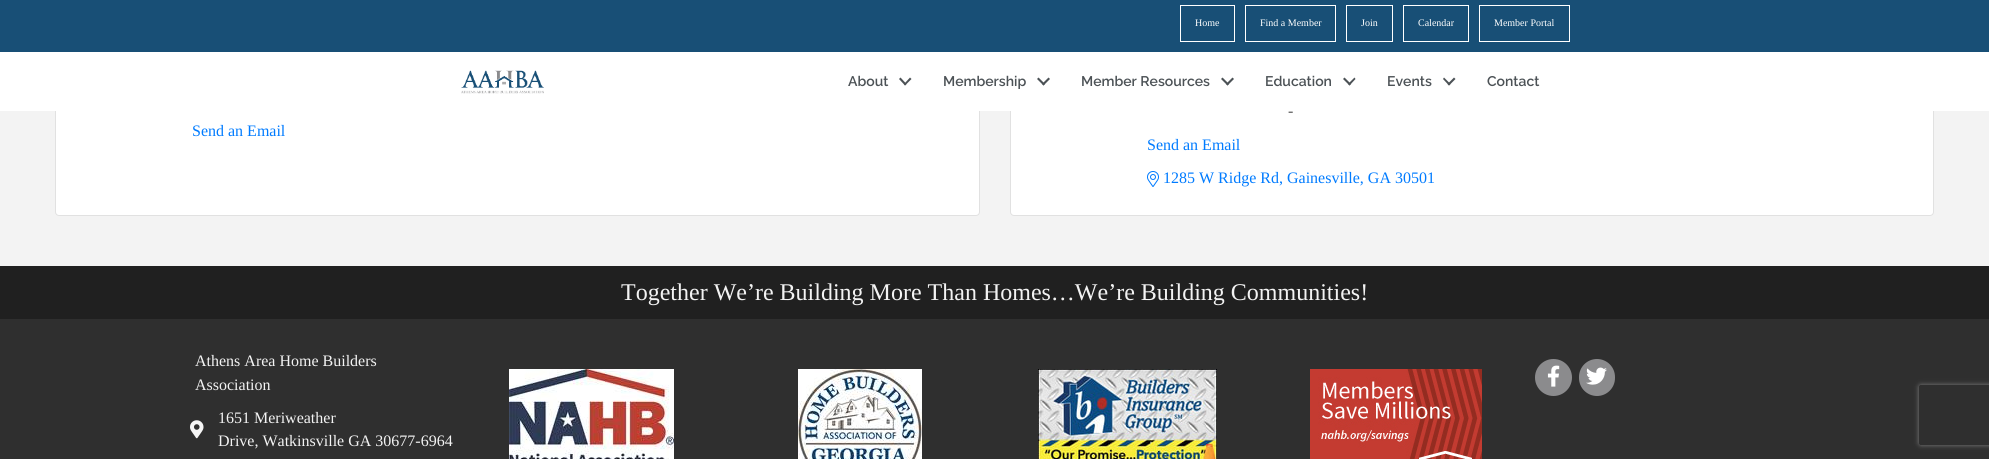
#include <cairo/cairo.h>
#include <math.h>
#include <stddef.h>

typedef struct { double x, y; const char *s; } line_t;
static cairo_t *cr;

static void rgb(unsigned color)
{
	cairo_set_source_rgb(cr, (color >> 16) / 255.0, (color >> 8 & 255) / 255.0, (color & 255) / 255.0);
}

static void rrect(double x, double y, double w, double h, double r)
{
	cairo_new_sub_path(cr);
	cairo_arc(cr, x + w - r, y + h - r, r, 0, M_PI / 2);
	cairo_arc(cr, x + r, y + h - r, r, M_PI / 2, M_PI);
	cairo_arc(cr, x + r, y + r, r, M_PI, 1.5 * M_PI);
	cairo_arc(cr, x + w - r, y + r, r, 1.5 * M_PI, 2 * M_PI);
	cairo_close_path(cr);
}

static void soft_shadow(double x, double y, double w, double h, double r, double blur, double alpha)
{
	cairo_push_group_with_content(cr, CAIRO_CONTENT_ALPHA);
	cairo_set_operator(cr, CAIRO_OPERATOR_SOURCE);
	for (int i = 15; i >= -15 && fmin(w, h) + blur * i / 3 > 0; i -= 2) {
		double e = blur * i / 6;
		cairo_set_source_rgba(cr, 0, 0, 0, alpha * erfc((i - 1) / 8.5) / 2);
		rrect(x - e, y - e, w + 2 * e, h + 2 * e, fmax(0, fmin(r + e + blur * .6, fmin(w, h) / 2 + e)));
		cairo_fill(cr);
	}
	cairo_pattern_t *soft = cairo_pop_group(cr);
	cairo_mask(cr, soft);
	cairo_pattern_destroy(soft);
}

static void image(const char *path, double x, double y, double w, double h)
{
	cairo_surface_t *image = cairo_image_surface_create_from_png(path);
	cairo_save(cr);
	cairo_set_source_surface(cr, image, x, y);
	cairo_rectangle(cr, x, y, w, h);
	cairo_fill(cr);
	cairo_restore(cr);
	cairo_surface_destroy(image);
}

int main(void) {
	cairo_surface_t *surface = cairo_image_surface_create(CAIRO_FORMAT_RGB24, 1989, 459);
	cr = cairo_create(surface);
	cairo_font_options_t *options = cairo_font_options_create();
	cairo_font_options_set_hint_metrics(options, CAIRO_HINT_METRICS_OFF);
	cairo_font_options_set_hint_style(options, CAIRO_HINT_STYLE_NONE);
	cairo_set_font_options(cr, options);
	cairo_set_miter_limit(cr, 4);
	rgb(0xf3f3f3);
	cairo_paint(cr);
	rgb(0xffffff);
	rrect(55, -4, 925, 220, 4);
	cairo_fill(cr);
	rrect(55.5, -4.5, 924, 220, 3.5);
	cairo_set_source_rgba(cr, 0, 0, 0, 0.12);
	cairo_set_line_width(cr, 1);
	cairo_stroke(cr);
	rgb(0xffffff);
	rrect(1010, -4, 924, 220, 4);
	cairo_fill(cr);
	rrect(1010.5, -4.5, 923, 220, 3.5);
	cairo_set_source_rgba(cr, 0, 0, 0, 0.12);
	cairo_stroke(cr);
	rgb(0x184f76);
	cairo_rectangle(cr, 0, 0, 1989, 52);
	cairo_fill(cr);
	cairo_rectangle(cr, 1180.5, 5.5, 54, 36);
	rgb(0xffffff);
	cairo_stroke(cr);
	cairo_rectangle(cr, 1245.5, 5.5, 90, 36);
	cairo_stroke(cr);
	cairo_rectangle(cr, 1346.5, 5.5, 46, 36);
	cairo_stroke(cr);
	cairo_rectangle(cr, 1403.5, 5.5, 65, 36);
	cairo_stroke(cr);
	cairo_rectangle(cr, 1479.5, 5.5, 90, 36);
	cairo_stroke(cr);
	cairo_rectangle(cr, 0, 52, 1989, 59);
	cairo_fill(cr);
	image("img/1.png", 461, 70, 83, 24);
	rgb(0x4c5256);
	cairo_new_path(cr);
	cairo_move_to(cr, 910, 77.5);
	cairo_line_to(cr, 911.5, 79);
	cairo_line_to(cr, 905, 85.5);
	cairo_line_to(cr, 904, 84);
	cairo_close_path(cr);
	cairo_fill(cr);
	cairo_new_path(cr);
	cairo_move_to(cr, 900.5, 77.5);
	cairo_line_to(cr, 906.5, 84);
	cairo_line_to(cr, 905, 85.5);
	cairo_line_to(cr, 899, 79);
	cairo_close_path(cr);
	cairo_fill(cr);
	cairo_new_path(cr);
	cairo_move_to(cr, 1048.5, 77.5);
	cairo_line_to(cr, 1050, 79);
	cairo_line_to(cr, 1043.5, 85.5);
	cairo_line_to(cr, 1042, 84);
	cairo_close_path(cr);
	cairo_fill(cr);
	cairo_new_path(cr);
	cairo_move_to(cr, 1038.5, 77.5);
	cairo_line_to(cr, 1045, 84);
	cairo_line_to(cr, 1043.5, 85.5);
	cairo_line_to(cr, 1037, 79);
	cairo_close_path(cr);
	cairo_fill(cr);
	cairo_new_path(cr);
	cairo_move_to(cr, 1232.5, 77.5);
	cairo_line_to(cr, 1234, 79);
	cairo_line_to(cr, 1227.5, 85.5);
	cairo_line_to(cr, 1226, 84);
	cairo_close_path(cr);
	cairo_fill(cr);
	cairo_new_path(cr);
	cairo_move_to(cr, 1222.5, 77.5);
	cairo_line_to(cr, 1229, 84);
	cairo_line_to(cr, 1227.5, 85.5);
	cairo_line_to(cr, 1221, 79);
	cairo_close_path(cr);
	cairo_fill(cr);
	cairo_new_path(cr);
	cairo_move_to(cr, 1354.5, 77.5);
	cairo_line_to(cr, 1355.5, 79);
	cairo_line_to(cr, 1349.5, 85.5);
	cairo_line_to(cr, 1348, 84);
	cairo_close_path(cr);
	cairo_fill(cr);
	cairo_new_path(cr);
	cairo_move_to(cr, 1344.5, 77.5);
	cairo_line_to(cr, 1351, 84);
	cairo_line_to(cr, 1349.5, 85.5);
	cairo_line_to(cr, 1343, 79);
	cairo_close_path(cr);
	cairo_fill(cr);
	cairo_new_path(cr);
	cairo_move_to(cr, 1454, 77.5);
	cairo_line_to(cr, 1455.5, 79);
	cairo_line_to(cr, 1449, 85.5);
	cairo_line_to(cr, 1447.5, 84);
	cairo_close_path(cr);
	cairo_fill(cr);
	cairo_new_path(cr);
	cairo_move_to(cr, 1444, 77.5);
	cairo_line_to(cr, 1450.5, 84);
	cairo_line_to(cr, 1449, 85.5);
	cairo_line_to(cr, 1443, 79);
	cairo_close_path(cr);
	cairo_fill(cr);
	image("img/2.png", 1147, 171, 12, 16);
	rgb(0x202020);
	cairo_rectangle(cr, 0, 266, 1989, 53);
	cairo_fill(cr);
	rgb(0x2f2f2f);
	cairo_rectangle(cr, 0, 319, 1989, 140);
	cairo_fill(cr);
	image("img/3.png", 190, 420, 14, 19);
	image("img/4.png", 509, 369, 165, 90);
	image("img/5.png", 798, 369, 124, 90);
	image("img/6.png", 1038, 369, 179, 90);
	image("img/7.png", 1310, 369, 172, 90);
	rgb(0x8b8b8d);
	cairo_arc(cr, 1553.5, 377.5, 18.5, 0, 2 * M_PI);
	cairo_fill(cr);
	image("img/8.png", 1547, 365, 13, 22);
	rrect(1579, 359, 36, 37, 18);
	cairo_fill(cr);
	image("img/9.png", 1586, 367, 21, 18);
	cairo_save(cr);
	cairo_set_fill_rule(cr, CAIRO_FILL_RULE_EVEN_ODD);
	cairo_new_path(cr);
	cairo_move_to(cr, 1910, 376);
	cairo_line_to(cr, 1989, 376);
	cairo_line_to(cr, 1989, 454);
	cairo_line_to(cr, 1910, 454);
	cairo_close_path(cr);
	cairo_move_to(cr, 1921, 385);
	cairo_line_to(cr, 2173, 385);
	cairo_curve_to(cr, 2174, 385, 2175, 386, 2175, 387);
	cairo_line_to(cr, 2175, 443);
	cairo_curve_to(cr, 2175, 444, 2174, 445, 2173, 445);
	cairo_line_to(cr, 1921, 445);
	cairo_curve_to(cr, 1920, 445, 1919, 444, 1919, 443);
	cairo_line_to(cr, 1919, 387);
	cairo_curve_to(cr, 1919, 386, 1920, 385, 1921, 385);
	cairo_close_path(cr);
	cairo_clip(cr);
	rgb(0x808080);
	soft_shadow(1919, 385, 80, 60, 2, 2.5, 1);
	cairo_restore(cr);
	cairo_select_font_face(cr, "Liberation Serif", CAIRO_FONT_SLANT_NORMAL, CAIRO_FONT_WEIGHT_NORMAL);
	cairo_set_font_size(cr, 10);
	rgb(0xffffff);
	{
		static const line_t items[] = {
			{1195, 26, "Home"},
			{1260, 26, "Find a Member"},
			{1361, 26, "Join"},
			{1418, 26, "Calendar"},
			{1494, 26, "Member Portal"},
		};
		for (size_t i = 0; i < sizeof items / sizeof *items; i++) {
			cairo_move_to(cr, items[i].x, items[i].y);
			cairo_show_text(cr, items[i].s);
		}
	}
	cairo_select_font_face(cr, "Raleway Thin", CAIRO_FONT_SLANT_NORMAL, CAIRO_FONT_WEIGHT_NORMAL);
	cairo_set_font_size(cr, 14);
	rgb(0x4c5256);
	{
		static const line_t items[] = {
			{848, 86, "About"},
			{943, 86, "Membership"},
			{1081, 86, "Member Resources"},
			{1265, 86, "Education"},
			{1387, 86, "Events"},
			{1487, 86, "Contact"},
		};
		for (size_t i = 0; i < sizeof items / sizeof *items; i++) {
			cairo_move_to(cr, items[i].x, items[i].y);
			cairo_show_text(cr, items[i].s);
		}
	}
	cairo_select_font_face(cr, "Liberation Serif", CAIRO_FONT_SLANT_NORMAL, CAIRO_FONT_WEIGHT_NORMAL);
	cairo_set_font_size(cr, 16);
	rgb(0x007bff);
	cairo_move_to(cr, 192, 136);
	cairo_show_text(cr, "Send an Email");
	rgb(0x555555);
	cairo_move_to(cr, 1288, 116);
	cairo_show_text(cr, "-");
	rgb(0x007bff);
	cairo_move_to(cr, 1147, 150);
	cairo_show_text(cr, "Send an Email");
	cairo_move_to(cr, 1163, 183);
	cairo_show_text(cr, "1285 W Ridge Rd, Gainesville, GA 30501");
	cairo_set_font_size(cr, 24);
	rgb(0xf3f3f3);
	cairo_move_to(cr, 621, 300);
	cairo_show_text(cr, "Together We’re Building More Than Homes…We’re Building Communities!");
	cairo_set_font_size(cr, 16);
	{
		static const line_t items[] = {
			{195, 366, "Athens Area Home Builders"},
			{195, 390, "Association"},
			{218, 423, "1651 Meriweather"},
			{218, 446, "Drive, Watkinsville GA 30677-6964"},
		};
		for (size_t i = 0; i < sizeof items / sizeof *items; i++) {
			cairo_move_to(cr, items[i].x, items[i].y);
			cairo_show_text(cr, items[i].s);
		}
	}
	cairo_surface_write_to_png(surface, "page.png");
	cairo_font_options_destroy(options);
	cairo_destroy(cr);
	cairo_surface_destroy(surface);
	return 0;
}
